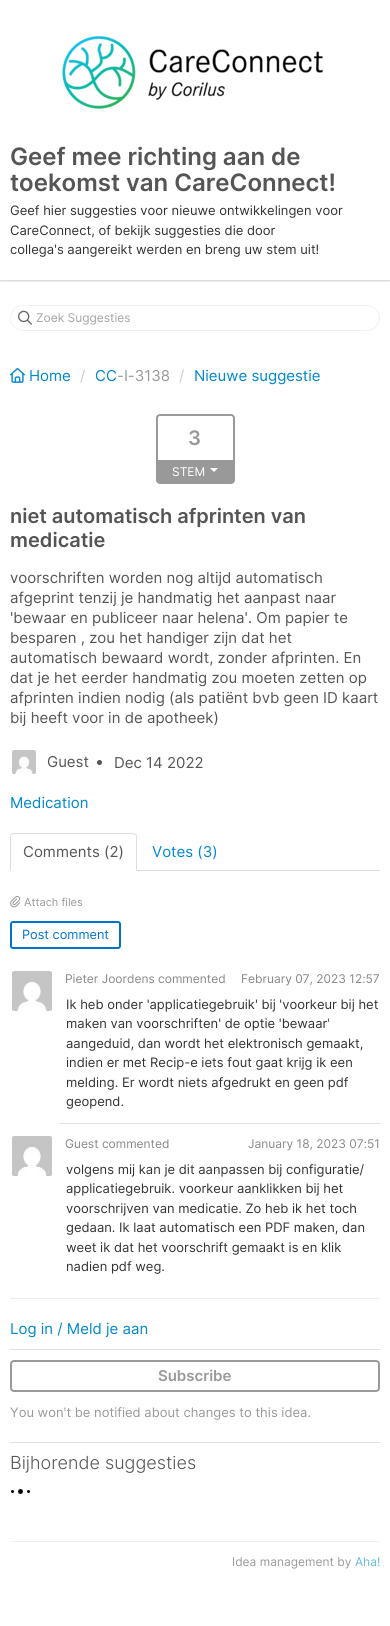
#include <cairo/cairo.h>
#include <math.h>
#include <stddef.h>

typedef struct { double x, y; const char *s; } line_t;
static cairo_t *cr;

static void rgb(unsigned color)
{
	cairo_set_source_rgb(cr, (color >> 16) / 255.0, (color >> 8 & 255) / 255.0, (color & 255) / 255.0);
}

static void rrect(double x, double y, double w, double h, double r)
{
	cairo_new_sub_path(cr);
	cairo_arc(cr, x + w - r, y + h - r, r, 0, M_PI / 2);
	cairo_arc(cr, x + r, y + h - r, r, M_PI / 2, M_PI);
	cairo_arc(cr, x + r, y + r, r, M_PI, 1.5 * M_PI);
	cairo_arc(cr, x + w - r, y + r, r, 1.5 * M_PI, 2 * M_PI);
	cairo_close_path(cr);
}

static void soft_shadow(double x, double y, double w, double h, double r, double blur, double alpha)
{
	cairo_push_group_with_content(cr, CAIRO_CONTENT_ALPHA);
	cairo_set_operator(cr, CAIRO_OPERATOR_SOURCE);
	for (int i = 15; i >= -15 && fmin(w, h) + blur * i / 3 > 0; i -= 2) {
		double e = blur * i / 6;
		cairo_set_source_rgba(cr, 0, 0, 0, alpha * erfc((i - 1) / 8.5) / 2);
		rrect(x - e, y - e, w + 2 * e, h + 2 * e, fmax(0, fmin(r + e + blur * .6, fmin(w, h) / 2 + e)));
		cairo_fill(cr);
	}
	cairo_pattern_t *soft = cairo_pop_group(cr);
	cairo_mask(cr, soft);
	cairo_pattern_destroy(soft);
}

static void image(const char *path, double x, double y, double w, double h)
{
	cairo_surface_t *image = cairo_image_surface_create_from_png(path);
	cairo_save(cr);
	cairo_set_source_surface(cr, image, x, y);
	cairo_rectangle(cr, x, y, w, h);
	cairo_fill(cr);
	cairo_restore(cr);
	cairo_surface_destroy(image);
}

int main(void) {
	cairo_surface_t *surface = cairo_image_surface_create(CAIRO_FORMAT_RGB24, 390, 1626);
	cr = cairo_create(surface);
	cairo_font_options_t *options = cairo_font_options_create();
	cairo_font_options_set_hint_metrics(options, CAIRO_HINT_METRICS_OFF);
	cairo_font_options_set_hint_style(options, CAIRO_HINT_STYLE_NONE);
	cairo_set_font_options(cr, options);
	cairo_set_miter_limit(cr, 4);
	rgb(0xffffff);
	cairo_paint(cr);
	cairo_save(cr);
	cairo_rectangle(cr, 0, 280, 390, 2);
	cairo_clip(cr);
	rgb(0x000000);
	soft_shadow(0, 1, 390, 280, 0, 1, 0.2);
	cairo_restore(cr);
	image("img/1.png", 62, 36, 261, 73);
	rrect(10.5, 305.5, 369, 25, 12.5);
	rgb(0xf1f1f1);
	cairo_set_line_width(cr, 1);
	cairo_stroke(cr);
	image("img/2.png", 18, 310, 14, 15);
	image("img/3.png", 10, 367, 15, 16);
	rrect(157, 415, 77, 68, 3);
	rgb(0x999999);
	cairo_set_line_width(cr, 2);
	cairo_stroke(cr);
	cairo_rectangle(cr, 158, 460, 75, 22);
	cairo_fill(cr);
	rgb(0xffffff);
	cairo_new_path(cr);
	cairo_move_to(cr, 210, 468);
	cairo_line_to(cr, 218, 468);
	cairo_line_to(cr, 214, 472);
	cairo_close_path(cr);
	cairo_fill(cr);
	rgb(0xeeeeee);
	cairo_rectangle(cr, 10, 1298, 370, 1);
	cairo_fill(cr);
	image("img/4.png", 12, 750, 24, 24);
	rgb(0x555555);
	cairo_arc(cr, 99.5, 762.5, 2.5, 0, 2 * M_PI);
	cairo_fill(cr);
	rgb(0xdddddd);
	cairo_rectangle(cr, 137, 870, 243, 1);
	cairo_fill(cr);
	cairo_new_path(cr);
	cairo_move_to(cr, 14, 833);
	cairo_line_to(cr, 11, 834);
	cairo_line_to(cr, 12, 835);
	cairo_line_to(cr, 14, 834);
	cairo_line_to(cr, 133, 834);
	cairo_line_to(cr, 135, 835);
	cairo_line_to(cr, 136, 834);
	cairo_line_to(cr, 133, 833);
	cairo_close_path(cr);
	cairo_fill(cr);
	cairo_new_path(cr);
	cairo_move_to(cr, 137, 871);
	cairo_line_to(cr, 137, 837);
	cairo_curve_to(cr, 137, 836, 136.5, 835, 136, 834);
	cairo_line_to(cr, 135, 835);
	cairo_curve_to(cr, 136, 835, 136, 836, 136, 837);
	cairo_line_to(cr, 136, 870);
	cairo_close_path(cr);
	cairo_fill(cr);
	cairo_new_path(cr);
	cairo_move_to(cr, 10, 871);
	cairo_line_to(cr, 11, 870);
	cairo_line_to(cr, 11, 837);
	cairo_curve_to(cr, 11, 836, 11, 835, 12, 835);
	cairo_line_to(cr, 11, 834);
	cairo_curve_to(cr, 10.5, 835, 10, 836, 10, 837);
	cairo_close_path(cr);
	cairo_fill(cr);
	image("img/5.png", 10, 896, 11, 12);
	rrect(11, 922, 109, 26, 2);
	rgb(0x0173cf);
	cairo_stroke(cr);
	image("img/6.png", 12, 971, 40, 40);
	rgb(0xe1e1e1);
	cairo_rectangle(cr, 60, 1123, 320, 1);
	cairo_fill(cr);
	image("img/6.png", 12, 1136, 40, 40);
	cairo_rectangle(cr, 10, 1349, 370, 1);
	cairo_fill(cr);
	cairo_rectangle(cr, 10, 1442, 370, 1);
	cairo_fill(cr);
	rrect(11, 1361, 368, 30, 3);
	rgb(0x999999);
	cairo_stroke(cr);
	image("img/7.png", 10, 1489, 21, 5);
	rgb(0xf1f1f1);
	cairo_rectangle(cr, 10, 1541, 370, 1);
	cairo_fill(cr);
	cairo_select_font_face(cr, "Inter SemiBold", CAIRO_FONT_SLANT_NORMAL, CAIRO_FONT_WEIGHT_NORMAL);
	cairo_set_font_size(cr, 24);
	rgb(0x555555);
	cairo_move_to(cr, 10, 165);
	cairo_show_text(cr, "Geef mee richting aan de");
	cairo_move_to(cr, 10, 191);
	cairo_show_text(cr, "toekomst van CareConnect!");
	cairo_select_font_face(cr, "Inter", CAIRO_FONT_SLANT_NORMAL, CAIRO_FONT_WEIGHT_NORMAL);
	cairo_set_font_size(cr, 13);
	rgb(0x333333);
	{
		static const line_t items[] = {
			{10, 215, "Geef hier suggesties voor nieuwe ontwikkelingen voor"},
			{10, 235, "CareConnect, of bekijk suggesties die door"},
			{10, 254, "collega's aangereikt werden en breng uw stem uit!"},
		};
		for (size_t i = 0; i < sizeof items / sizeof *items; i++) {
			cairo_move_to(cr, items[i].x, items[i].y);
			cairo_show_text(cr, items[i].s);
		}
	}
	cairo_set_font_size(cr, 12);
	rgb(0xa5a5a5);
	cairo_move_to(cr, 36, 322);
	cairo_show_text(cr, "Zoek Suggesties");
	cairo_set_font_size(cr, 15);
	rgb(0x0088cc);
	cairo_move_to(cr, 29, 381);
	cairo_show_text(cr, "Home");
	rgb(0xcccccc);
	cairo_move_to(cr, 80, 381);
	cairo_show_text(cr, "/");
	rgb(0x0088cc);
	cairo_move_to(cr, 95, 381);
	cairo_show_text(cr, "CC");
	rgb(0x999999);
	cairo_move_to(cr, 117, 381);
	cairo_show_text(cr, "-I-3138");
	rgb(0xcccccc);
	cairo_move_to(cr, 179, 381);
	cairo_show_text(cr, "/");
	rgb(0x0088cc);
	cairo_move_to(cr, 194, 381);
	cairo_show_text(cr, "Nieuwe suggestie");
	cairo_select_font_face(cr, "Inter SemiBold", CAIRO_FONT_SLANT_NORMAL, CAIRO_FONT_WEIGHT_NORMAL);
	cairo_set_font_size(cr, 20);
	rgb(0x999999);
	cairo_move_to(cr, 188, 445);
	cairo_show_text(cr, "3");
	cairo_select_font_face(cr, "Inter", CAIRO_FONT_SLANT_NORMAL, CAIRO_FONT_WEIGHT_NORMAL);
	cairo_set_font_size(cr, 12);
	rgb(0xffffff);
	cairo_move_to(cr, 172, 476);
	cairo_show_text(cr, "STEM");
	cairo_select_font_face(cr, "Inter SemiBold", CAIRO_FONT_SLANT_NORMAL, CAIRO_FONT_WEIGHT_NORMAL);
	cairo_set_font_size(cr, 20);
	rgb(0x555555);
	cairo_move_to(cr, 10, 523);
	cairo_show_text(cr, "niet automatisch afprinten van");
	cairo_move_to(cr, 10, 547);
	cairo_show_text(cr, "medicatie");
	cairo_select_font_face(cr, "Inter", CAIRO_FONT_SLANT_NORMAL, CAIRO_FONT_WEIGHT_NORMAL);
	cairo_set_font_size(cr, 15);
	{
		static const line_t items[] = {
			{10, 583, "voorschriften worden nog altijd automatisch"},
			{10, 603, "afgeprint tenzij je handmatig het aanpast naar"},
			{10, 623, "'bewaar en publiceer naar helena'. Om papier te"},
			{10, 643, "besparen , zou het handiger zijn dat het"},
			{10, 663, "automatisch bewaard wordt, zonder afprinten. En"},
			{10, 683, "dat je het eerder handmatig zou moeten zetten op"},
			{10, 703, "afprinten indien nodig (als patiënt bvb geen ID kaart"},
			{10, 723, "bij heeft voor in de apotheek)"},
			{47, 767, "Guest"},
			{114, 768, "Dec 14 2022"},
		};
		for (size_t i = 0; i < sizeof items / sizeof *items; i++) {
			cairo_move_to(cr, items[i].x, items[i].y);
			cairo_show_text(cr, items[i].s);
		}
	}
	rgb(0x0088cc);
	cairo_move_to(cr, 10, 808);
	cairo_show_text(cr, "Medication");
	rgb(0x555555);
	cairo_move_to(cr, 23, 857);
	cairo_show_text(cr, "Comments (2)");
	rgb(0x0088cc);
	cairo_move_to(cr, 152, 857);
	cairo_show_text(cr, "Votes (3)");
	cairo_set_font_size(cr, 11);
	rgb(0x999999);
	cairo_move_to(cr, 24, 906);
	cairo_show_text(cr, "Attach files");
	cairo_set_font_size(cr, 12.75);
	rgb(0x0173cf);
	cairo_move_to(cr, 22, 939);
	cairo_show_text(cr, "Post comment");
	cairo_set_font_size(cr, 12);
	rgb(0x888888);
	cairo_move_to(cr, 65, 983);
	cairo_show_text(cr, "Pieter Joordens commented");
	cairo_move_to(cr, 241, 983);
	cairo_show_text(cr, "February 07, 2023 12:57");
	cairo_set_font_size(cr, 13);
	rgb(0x333333);
	{
		static const line_t items[] = {
			{66, 1009, "Ik heb onder 'applicatiegebruik' bij 'voorkeur bij het"},
			{66, 1028, "maken van voorschriften' de optie 'bewaar'"},
			{66, 1048, "aangeduid, dan wordt het elektronisch gemaakt,"},
			{66, 1067, "indien er met Recip-e iets fout gaat krijg ik een"},
			{66, 1087, "melding. Er wordt niets afgedrukt en geen pdf"},
			{66, 1106, "geopend."},
		};
		for (size_t i = 0; i < sizeof items / sizeof *items; i++) {
			cairo_move_to(cr, items[i].x, items[i].y);
			cairo_show_text(cr, items[i].s);
		}
	}
	cairo_set_font_size(cr, 12);
	rgb(0x888888);
	cairo_move_to(cr, 65, 1148);
	cairo_show_text(cr, "Guest commented");
	cairo_move_to(cr, 248, 1148);
	cairo_show_text(cr, "January 18, 2023 07:51");
	cairo_set_font_size(cr, 13);
	rgb(0x333333);
	{
		static const line_t items[] = {
			{66, 1174, "volgens mij kan je dit aanpassen bij configuratie/"},
			{66, 1193, "applicatiegebruik. voorkeur aanklikken bij het"},
			{66, 1213, "voorschrijven van medicatie. Zo heb ik het toch"},
			{66, 1232, "gedaan. Ik laat automatisch een PDF maken, dan"},
			{66, 1252, "weet ik dat het voorschrift gemaakt is en klik"},
			{66, 1271, "nadien pdf weg."},
		};
		for (size_t i = 0; i < sizeof items / sizeof *items; i++) {
			cairo_move_to(cr, items[i].x, items[i].y);
			cairo_show_text(cr, items[i].s);
		}
	}
	cairo_set_font_size(cr, 15);
	rgb(0x0088cc);
	cairo_move_to(cr, 10, 1334);
	cairo_show_text(cr, "Log in / Meld je aan");
	cairo_select_font_face(cr, "Inter SemiBold", CAIRO_FONT_SLANT_NORMAL, CAIRO_FONT_WEIGHT_NORMAL);
	rgb(0x999999);
	cairo_move_to(cr, 158, 1381);
	cairo_show_text(cr, "Subscribe");
	cairo_select_font_face(cr, "Inter", CAIRO_FONT_SLANT_NORMAL, CAIRO_FONT_WEIGHT_NORMAL);
	cairo_set_font_size(cr, 13);
	cairo_move_to(cr, 10, 1417);
	cairo_show_text(cr, "You won't be notified about changes to this idea.");
	cairo_select_font_face(cr, "Inter Light", CAIRO_FONT_SLANT_NORMAL, CAIRO_FONT_WEIGHT_NORMAL);
	cairo_set_font_size(cr, 18);
	rgb(0x555555);
	cairo_move_to(cr, 10, 1469);
	cairo_show_text(cr, "Bijhorende suggesties");
	cairo_select_font_face(cr, "Inter", CAIRO_FONT_SLANT_NORMAL, CAIRO_FONT_WEIGHT_NORMAL);
	cairo_set_font_size(cr, 12);
	rgb(0x999999);
	cairo_move_to(cr, 232, 1566);
	cairo_show_text(cr, "Idea management by");
	rgb(0x66b8e0);
	cairo_move_to(cr, 355, 1566);
	cairo_show_text(cr, "Aha!");
	cairo_surface_write_to_png(surface, "page.png");
	cairo_font_options_destroy(options);
	cairo_destroy(cr);
	cairo_surface_destroy(surface);
	return 0;
}
